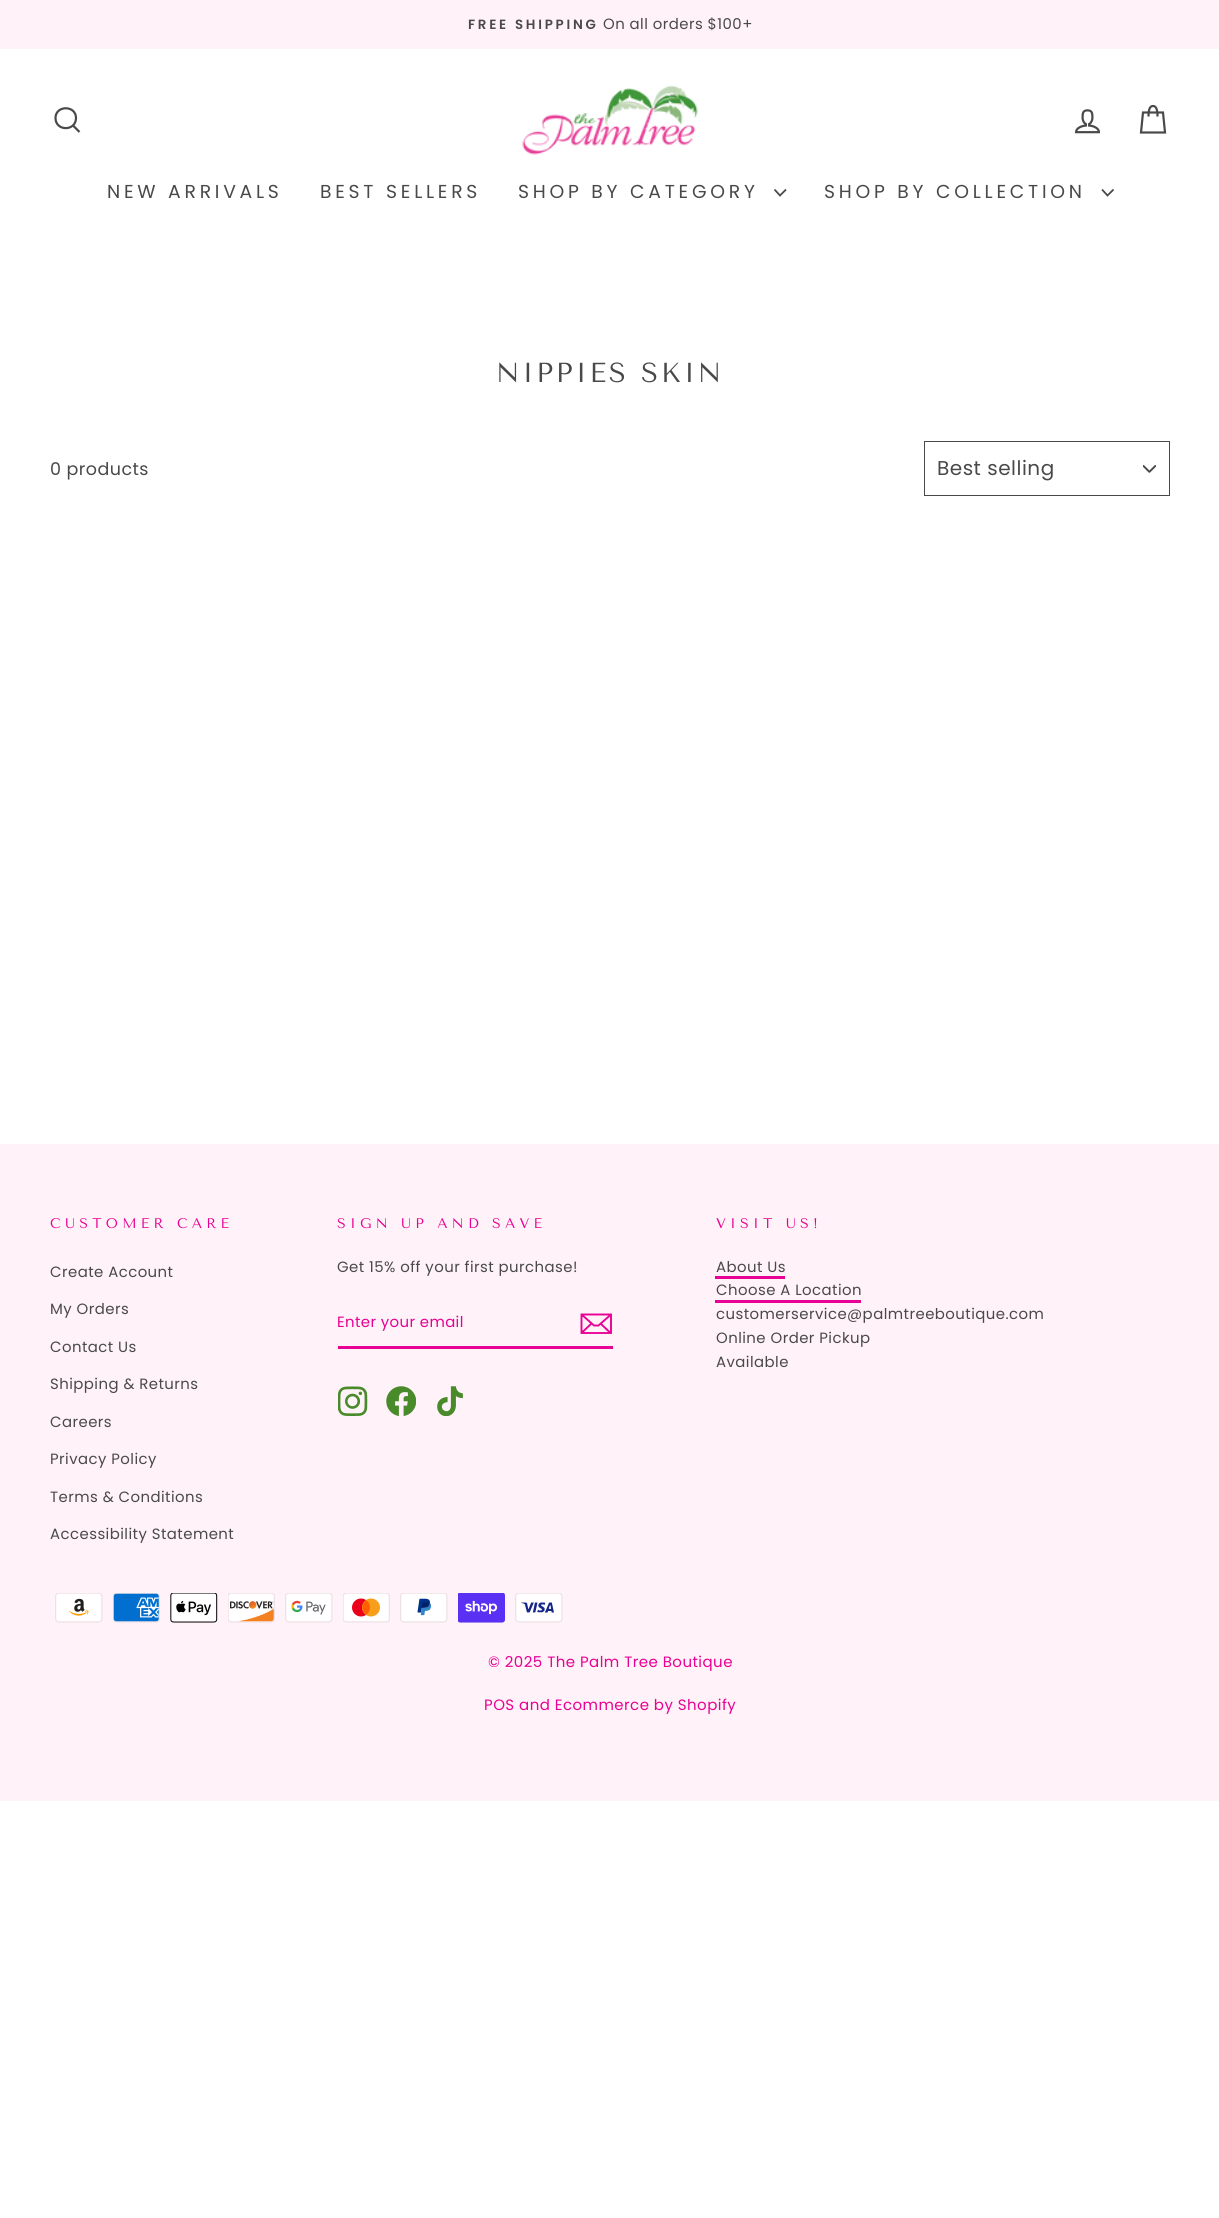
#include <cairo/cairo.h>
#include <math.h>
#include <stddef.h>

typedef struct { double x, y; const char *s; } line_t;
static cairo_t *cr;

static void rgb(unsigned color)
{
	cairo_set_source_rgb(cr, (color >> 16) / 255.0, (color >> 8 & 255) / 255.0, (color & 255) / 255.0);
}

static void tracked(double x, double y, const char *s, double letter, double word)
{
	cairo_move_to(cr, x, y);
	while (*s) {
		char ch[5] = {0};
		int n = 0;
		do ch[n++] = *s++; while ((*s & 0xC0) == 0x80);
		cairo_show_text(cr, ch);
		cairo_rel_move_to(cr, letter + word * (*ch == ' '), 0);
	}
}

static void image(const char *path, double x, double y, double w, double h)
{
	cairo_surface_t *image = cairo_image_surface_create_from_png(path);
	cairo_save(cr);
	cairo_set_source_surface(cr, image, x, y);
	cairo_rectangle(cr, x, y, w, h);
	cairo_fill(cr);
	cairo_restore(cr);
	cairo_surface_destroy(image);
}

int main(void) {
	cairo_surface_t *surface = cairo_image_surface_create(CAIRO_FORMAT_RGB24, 1219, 2218);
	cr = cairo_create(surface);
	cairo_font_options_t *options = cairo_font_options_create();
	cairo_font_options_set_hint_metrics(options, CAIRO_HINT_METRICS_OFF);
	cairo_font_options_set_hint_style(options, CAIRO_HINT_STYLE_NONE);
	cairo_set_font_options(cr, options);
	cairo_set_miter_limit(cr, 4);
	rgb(0xffffff);
	cairo_paint(cr);
	rgb(0xfff2f8);
	cairo_rectangle(cr, 0, 0, 1219, 49);
	cairo_fill(cr);
	cairo_new_path(cr);
	cairo_move_to(cr, 76, 118);
	cairo_curve_to(cr, 76, 131.5, 55.5, 131.5, 55.5, 118);
	cairo_curve_to(cr, 55.5, 105, 76, 105, 76, 118);
	cairo_close_path(cr);
	cairo_move_to(cr, 79.5, 132);
	cairo_line_to(cr, 73, 125.5);
	rgb(0x494949);
	cairo_set_line_width(cr, 2.2);
	cairo_stroke(cr);
	image("img/1.png", 522, 85, 176, 70);
	image("img/2.png", 1075, 109, 25, 25);
	cairo_new_path(cr);
	cairo_move_to(cr, 1148.5, 116.5);
	cairo_curve_to(cr, 1148.5, 108, 1150.5, 106, 1153, 106);
	cairo_curve_to(cr, 1155.5, 106, 1157.5, 108, 1157.5, 116.5);
	cairo_move_to(cr, 1143, 112.5);
	cairo_line_to(cr, 1163, 112.5);
	cairo_line_to(cr, 1165, 132.5);
	cairo_line_to(cr, 1141, 132.5);
	cairo_close_path(cr);
	cairo_stroke(cr);
	cairo_new_path(cr);
	cairo_move_to(cr, 774.5, 189.5);
	cairo_line_to(cr, 780, 195.5);
	cairo_line_to(cr, 786, 189.5);
	cairo_set_line_width(cr, 1.8);
	cairo_stroke(cr);
	cairo_new_path(cr);
	cairo_move_to(cr, 1102, 189.5);
	cairo_line_to(cr, 1107.5, 195.5);
	cairo_line_to(cr, 1113.5, 189.5);
	cairo_stroke(cr);
	image("img/3.png", 1143, 465, 13, 8);
	cairo_rectangle(cr, 924.5, 441.5, 245, 54);
	cairo_set_line_width(cr, 1);
	cairo_stroke(cr);
	rgb(0xfff2f8);
	cairo_rectangle(cr, 0, 1144, 1219, 657);
	cairo_fill(cr);
	rgb(0xe70194);
	cairo_rectangle(cr, 338, 1346, 275, 3);
	cairo_fill(cr);
	cairo_new_path(cr);
	cairo_move_to(cr, 611, 1333);
	cairo_line_to(cr, 581.5, 1333);
	cairo_line_to(cr, 581.5, 1314.5);
	cairo_line_to(cr, 611, 1314.5);
	cairo_close_path(cr);
	cairo_move_to(cr, 581.5, 1314.5);
	cairo_line_to(cr, 594, 1325.5);
	cairo_line_to(cr, 598.5, 1325.5);
	cairo_line_to(cr, 611, 1314.5);
	cairo_move_to(cr, 591.5, 1323.5);
	cairo_line_to(cr, 582, 1332.5);
	cairo_move_to(cr, 610.5, 1333);
	cairo_line_to(cr, 600.5, 1323.5);
	cairo_set_line_width(cr, 1.9);
	cairo_stroke(cr);
	image("img/4.png", 338, 1386, 30, 30);
	image("img/5.png", 386, 1386, 30, 30);
	image("img/6.png", 437, 1386, 26, 30);
	cairo_rectangle(cr, 715, 1276, 70, 3);
	cairo_fill(cr);
	cairo_rectangle(cr, 715, 1300, 146, 3);
	cairo_fill(cr);
	image("img/7.png", 55, 1593, 48, 30);
	image("img/8.png", 113, 1593, 47, 30);
	image("img/9.png", 170, 1593, 48, 30);
	image("img/10.png", 228, 1593, 47, 30);
	image("img/11.png", 285, 1593, 48, 30);
	image("img/12.png", 343, 1593, 47, 30);
	image("img/13.png", 400, 1593, 48, 30);
	image("img/14.png", 458, 1593, 47, 30);
	image("img/15.png", 515, 1593, 48, 30);
	cairo_select_font_face(cr, "Poppins SemiBold", CAIRO_FONT_SLANT_NORMAL, CAIRO_FONT_WEIGHT_NORMAL);
	cairo_set_font_size(cr, 13.4);
	rgb(0x494949);
	tracked(468, 29, "FREE SHIPPING", 2.75, 0);
	cairo_select_font_face(cr, "Poppins", CAIRO_FONT_SLANT_NORMAL, CAIRO_FONT_WEIGHT_NORMAL);
	cairo_set_font_size(cr, 14.9);
	tracked(603, 29, "On all orders $100+", 0.45, 0);
	cairo_set_font_size(cr, 18.75);
	{
		static const line_t items[] = {
			{107, 198, "NEW ARRIVALS"},
			{320, 198, "BEST SELLERS"},
			{518, 198, "SHOP BY CATEGORY"},
			{824, 198, "SHOP BY COLLECTION"},
		};
		for (size_t i = 0; i < sizeof items / sizeof *items; i++) {
			tracked(items[i].x, items[i].y, items[i].s, 3.75, 0);
		}
	}
	cairo_select_font_face(cr, "Tenor Sans", CAIRO_FONT_SLANT_NORMAL, CAIRO_FONT_WEIGHT_NORMAL);
	cairo_set_font_size(cr, 27.5);
	tracked(496, 382, "NIPPIES SKIN", 2.75, 0);
	cairo_select_font_face(cr, "Poppins", CAIRO_FONT_SLANT_NORMAL, CAIRO_FONT_WEIGHT_NORMAL);
	cairo_set_font_size(cr, 17.5);
	tracked(50, 475, "0 products", 0.45, 0);
	cairo_set_font_size(cr, 20);
	tracked(937, 475, "Best selling", 0.5, 0);
	cairo_select_font_face(cr, "Tenor Sans", CAIRO_FONT_SLANT_NORMAL, CAIRO_FONT_WEIGHT_NORMAL);
	cairo_set_font_size(cr, 14);
	rgb(0xe70194);
	tracked(50, 1228, "CUSTOMER CARE", 4.25, 0);
	cairo_select_font_face(cr, "Poppins", CAIRO_FONT_SLANT_NORMAL, CAIRO_FONT_WEIGHT_NORMAL);
	cairo_set_font_size(cr, 14.9);
	rgb(0x494949);
	{
		static const line_t items[] = {
			{50, 1277, "Create Account"},
			{50, 1314, "My Orders"},
			{50, 1352, "Contact Us"},
			{50, 1389, "Shipping & Returns"},
			{50, 1427, "Careers"},
			{50, 1464, "Privacy Policy"},
			{50, 1502, "Terms & Conditions"},
			{50, 1539, "Accessibility Statement"},
		};
		for (size_t i = 0; i < sizeof items / sizeof *items; i++) {
			tracked(items[i].x, items[i].y, items[i].s, 0.45, 0);
		}
	}
	cairo_select_font_face(cr, "Tenor Sans", CAIRO_FONT_SLANT_NORMAL, CAIRO_FONT_WEIGHT_NORMAL);
	cairo_set_font_size(cr, 14);
	rgb(0xe70194);
	tracked(337, 1228, "SIGN UP AND SAVE", 4.25, 0);
	cairo_select_font_face(cr, "Poppins", CAIRO_FONT_SLANT_NORMAL, CAIRO_FONT_WEIGHT_NORMAL);
	cairo_set_font_size(cr, 14.9);
	rgb(0x494949);
	tracked(337, 1272, "Get 15% off your first purchase!", 0.45, 0);
	rgb(0xe70194);
	tracked(337, 1327, "Enter your email", 0.4, 0);
	cairo_select_font_face(cr, "Tenor Sans", CAIRO_FONT_SLANT_NORMAL, CAIRO_FONT_WEIGHT_NORMAL);
	cairo_set_font_size(cr, 14);
	tracked(716, 1228, "VISIT US!", 4.25, 0);
	cairo_select_font_face(cr, "Poppins", CAIRO_FONT_SLANT_NORMAL, CAIRO_FONT_WEIGHT_NORMAL);
	cairo_set_font_size(cr, 14.9);
	rgb(0x494949);
	{
		static const line_t items[] = {
			{716, 1272, "About Us"},
			{716, 1295, "Choose A Location"},
			{716, 1319, "customerservice@palmtreeboutique.com"},
			{716, 1343, "Online Order Pickup"},
			{716, 1367, "Available"},
		};
		for (size_t i = 0; i < sizeof items / sizeof *items; i++) {
			tracked(items[i].x, items[i].y, items[i].s, 0.45, 0);
		}
	}
	cairo_set_font_size(cr, 15);
	rgb(0xe70194);
	tracked(488, 1667, "© 2025 The Palm Tree Boutique", 0.45, 0);
	tracked(484, 1710, "POS and Ecommerce by Shopify", 0.45, 0);
	cairo_surface_write_to_png(surface, "page.png");
	cairo_font_options_destroy(options);
	cairo_destroy(cr);
	cairo_surface_destroy(surface);
	return 0;
}
